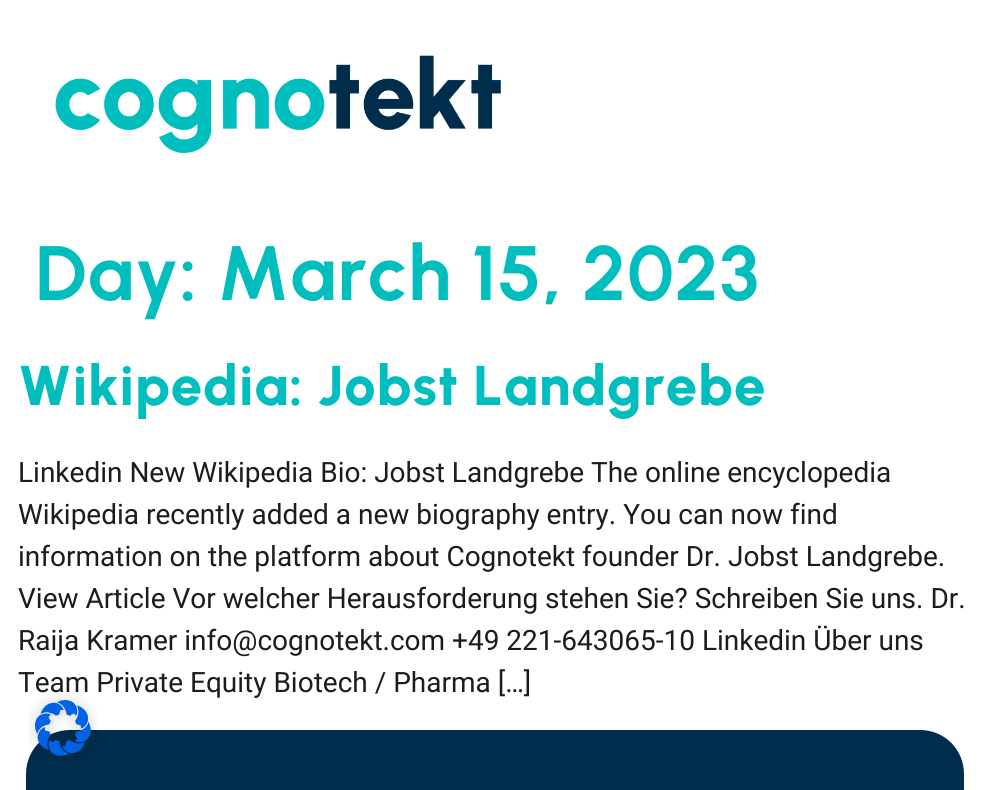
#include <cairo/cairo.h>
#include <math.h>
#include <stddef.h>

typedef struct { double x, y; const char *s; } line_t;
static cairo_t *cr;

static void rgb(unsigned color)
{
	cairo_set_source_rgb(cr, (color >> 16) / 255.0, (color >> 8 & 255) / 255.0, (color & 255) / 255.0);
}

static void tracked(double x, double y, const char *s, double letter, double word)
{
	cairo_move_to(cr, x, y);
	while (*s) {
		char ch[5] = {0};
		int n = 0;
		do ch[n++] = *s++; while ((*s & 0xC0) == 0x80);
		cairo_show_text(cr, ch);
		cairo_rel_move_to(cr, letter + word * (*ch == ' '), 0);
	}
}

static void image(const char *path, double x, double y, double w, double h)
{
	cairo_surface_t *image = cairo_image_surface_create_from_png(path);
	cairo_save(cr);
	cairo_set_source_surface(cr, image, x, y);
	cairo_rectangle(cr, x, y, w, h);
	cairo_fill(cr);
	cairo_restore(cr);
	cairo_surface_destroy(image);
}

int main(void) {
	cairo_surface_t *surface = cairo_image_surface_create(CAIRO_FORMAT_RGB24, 990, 790);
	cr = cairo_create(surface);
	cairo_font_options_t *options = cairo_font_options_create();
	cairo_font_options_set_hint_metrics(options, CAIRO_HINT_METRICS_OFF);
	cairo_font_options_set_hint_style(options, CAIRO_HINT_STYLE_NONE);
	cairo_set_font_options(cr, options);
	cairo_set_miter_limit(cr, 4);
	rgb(0xffffff);
	cairo_paint(cr);
	image("img/1.png", 55, 55, 446, 99);
	rgb(0x002d4b);
	cairo_new_path(cr);
	cairo_move_to(cr, 70, 730);
	cairo_line_to(cr, 920, 730);
	cairo_curve_to(cr, 944.5, 730, 964, 749.5, 964, 774);
	cairo_line_to(cr, 964, 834);
	cairo_line_to(cr, 26, 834);
	cairo_line_to(cr, 26, 774);
	cairo_curve_to(cr, 26, 749.5, 45.5, 730, 70, 730);
	cairo_close_path(cr);
	cairo_fill(cr);
	cairo_select_font_face(cr, "Urbanist", CAIRO_FONT_SLANT_NORMAL, CAIRO_FONT_WEIGHT_BOLD);
	cairo_set_font_size(cr, 77);
	rgb(0x00bebe);
	tracked(35, 300, "Day: March 15, 2023", 0.9, 0);
	cairo_select_font_face(cr, "Urbanist ExtraBold", CAIRO_FONT_SLANT_NORMAL, CAIRO_FONT_WEIGHT_NORMAL);
	cairo_set_font_size(cr, 56);
	tracked(18, 405, "Wikipedia: Jobst Landgrebe", 0.9, 0);
	cairo_select_font_face(cr, "Roboto", CAIRO_FONT_SLANT_NORMAL, CAIRO_FONT_WEIGHT_NORMAL);
	cairo_set_font_size(cr, 28);
	rgb(0x1c1c1c);
	{
		static const line_t items[] = {
			{18, 482, "Linkedin New Wikipedia Bio: Jobst Landgrebe The online encyclopedia"},
			{18, 524, "Wikipedia recently added a new biography entry. You can now find"},
			{18, 566, "information on the platform about Cognotekt founder Dr. Jobst Landgrebe."},
			{18, 608, "View Article Vor welcher Herausforderung stehen Sie? Schreiben Sie uns. Dr."},
			{18, 650, "Raija Kramer info@cognotekt.com +49 221-643065-10 Linkedin Über uns"},
			{18, 692, "Team Private Equity Biotech / Pharma […]"},
		};
		for (size_t i = 0; i < sizeof items / sizeof *items; i++) {
			cairo_move_to(cr, items[i].x, items[i].y);
			cairo_show_text(cr, items[i].s);
		}
	}
	image("img/2.png", 28, 693, 70, 65);
	cairo_surface_write_to_png(surface, "page.png");
	cairo_font_options_destroy(options);
	cairo_destroy(cr);
	cairo_surface_destroy(surface);
	return 0;
}
